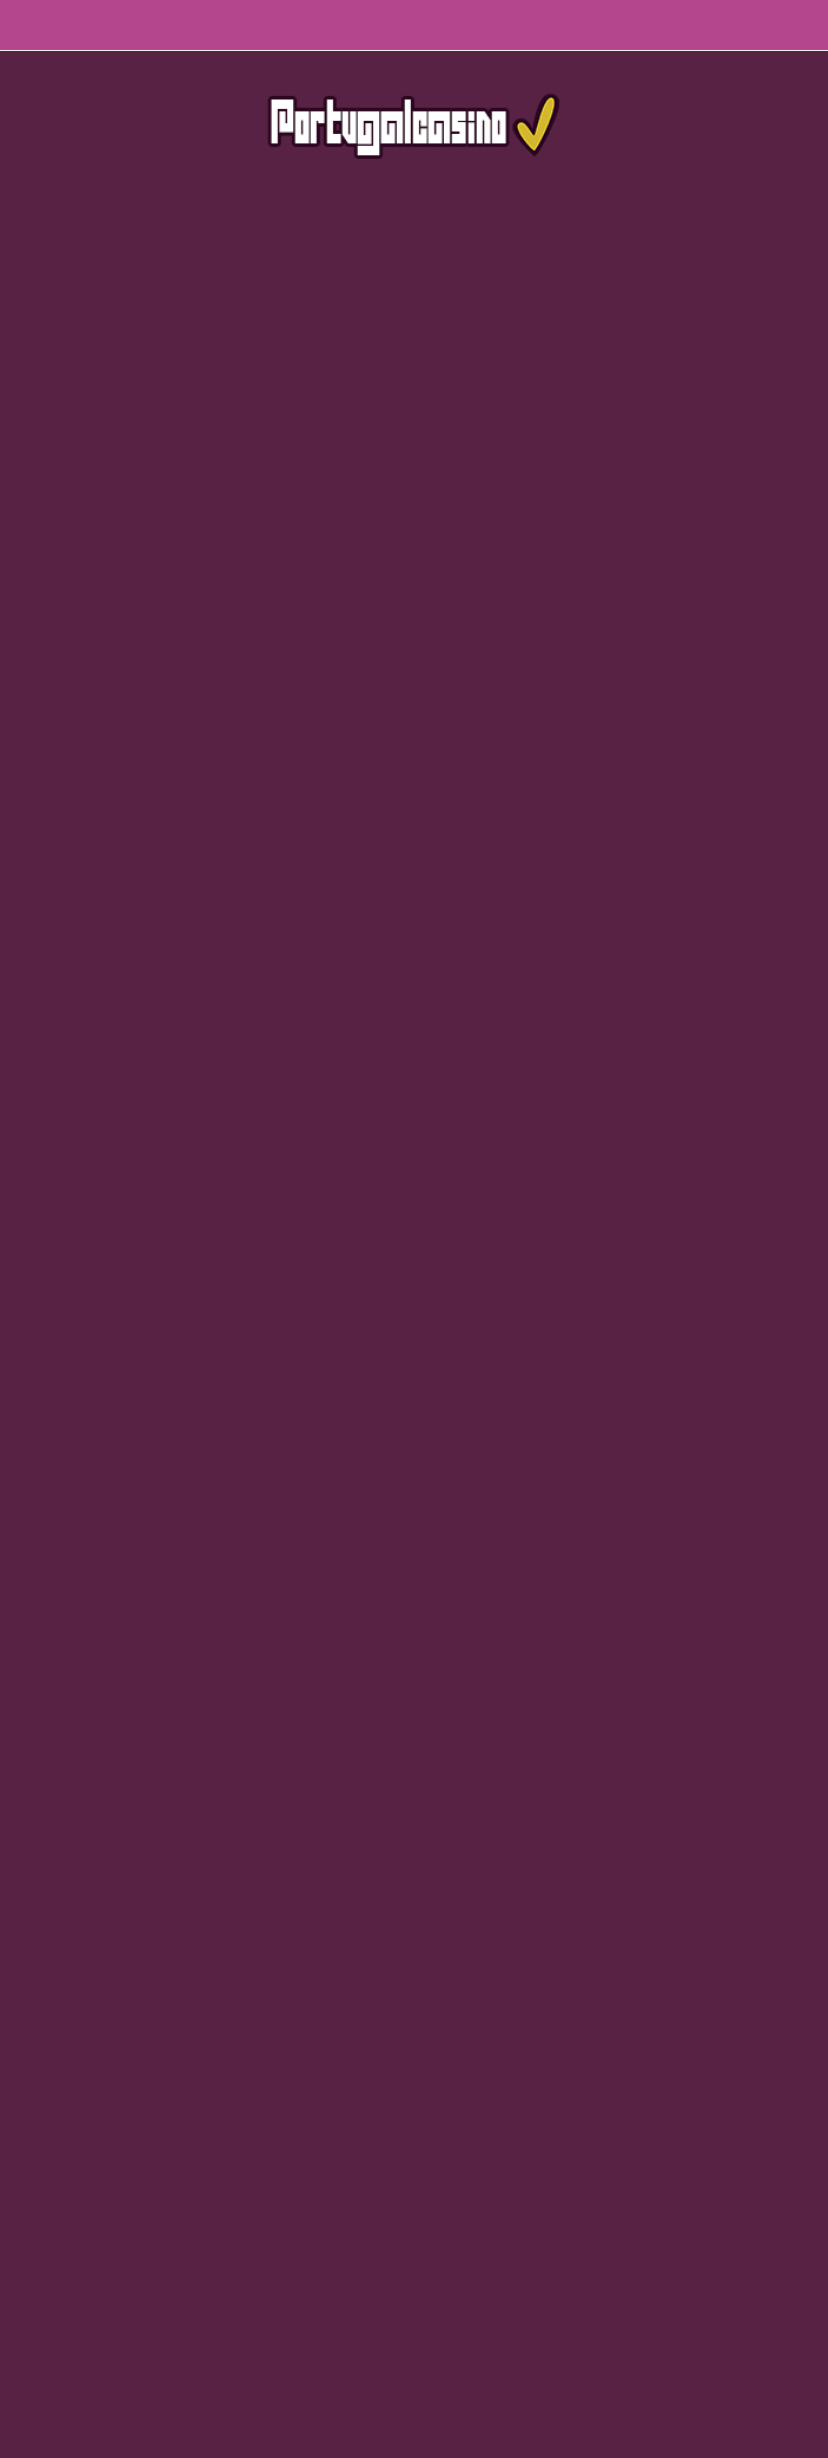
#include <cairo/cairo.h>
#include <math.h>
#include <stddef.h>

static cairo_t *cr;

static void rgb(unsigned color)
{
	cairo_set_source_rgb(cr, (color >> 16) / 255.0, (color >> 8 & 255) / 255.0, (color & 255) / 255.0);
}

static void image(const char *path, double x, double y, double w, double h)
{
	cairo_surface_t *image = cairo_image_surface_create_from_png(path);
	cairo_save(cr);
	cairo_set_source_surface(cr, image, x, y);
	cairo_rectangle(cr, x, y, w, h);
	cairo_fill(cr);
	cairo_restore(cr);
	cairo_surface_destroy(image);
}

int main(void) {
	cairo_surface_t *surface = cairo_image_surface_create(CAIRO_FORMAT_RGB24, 828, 2458);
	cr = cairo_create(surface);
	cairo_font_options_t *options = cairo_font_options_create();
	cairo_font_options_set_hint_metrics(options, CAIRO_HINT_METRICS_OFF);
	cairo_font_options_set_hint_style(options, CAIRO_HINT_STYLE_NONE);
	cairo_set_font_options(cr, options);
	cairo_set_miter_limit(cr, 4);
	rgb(0x582245);
	cairo_paint(cr);
	rgb(0xb3468c);
	cairo_rectangle(cr, 0, 0, 828, 50);
	cairo_fill(cr);
	rgb(0xf1f1f1);
	cairo_rectangle(cr, 0, 50, 828, 1);
	cairo_fill(cr);
	image("img/1.png", 267, 93, 293, 66);
	cairo_surface_write_to_png(surface, "page.png");
	cairo_font_options_destroy(options);
	cairo_destroy(cr);
	cairo_surface_destroy(surface);
	return 0;
}
